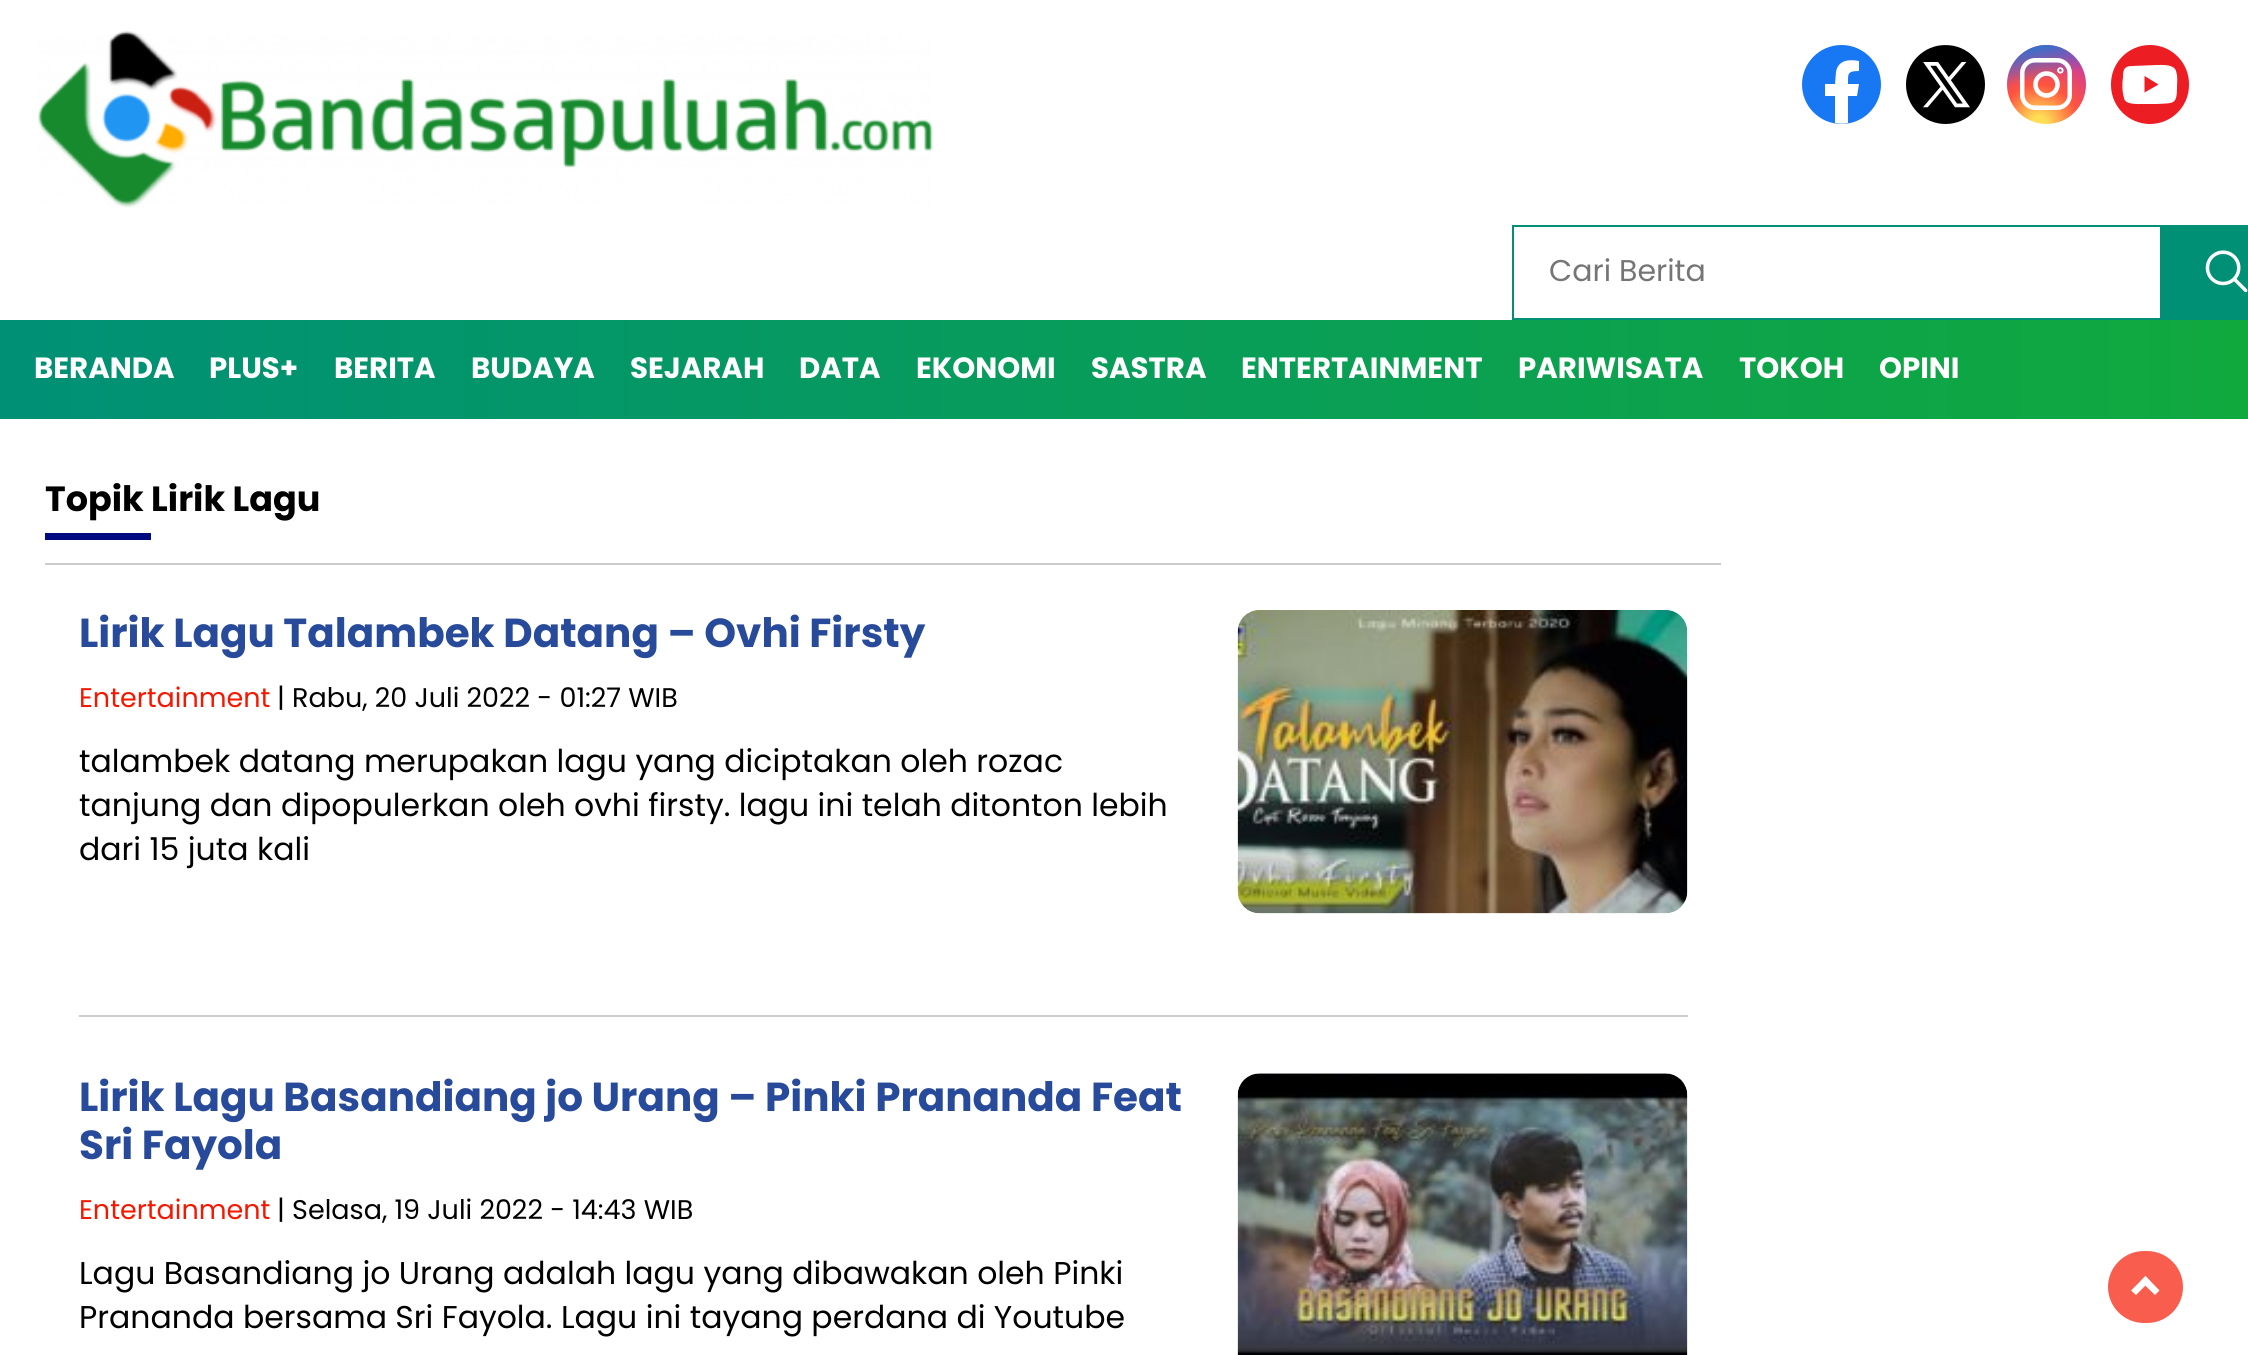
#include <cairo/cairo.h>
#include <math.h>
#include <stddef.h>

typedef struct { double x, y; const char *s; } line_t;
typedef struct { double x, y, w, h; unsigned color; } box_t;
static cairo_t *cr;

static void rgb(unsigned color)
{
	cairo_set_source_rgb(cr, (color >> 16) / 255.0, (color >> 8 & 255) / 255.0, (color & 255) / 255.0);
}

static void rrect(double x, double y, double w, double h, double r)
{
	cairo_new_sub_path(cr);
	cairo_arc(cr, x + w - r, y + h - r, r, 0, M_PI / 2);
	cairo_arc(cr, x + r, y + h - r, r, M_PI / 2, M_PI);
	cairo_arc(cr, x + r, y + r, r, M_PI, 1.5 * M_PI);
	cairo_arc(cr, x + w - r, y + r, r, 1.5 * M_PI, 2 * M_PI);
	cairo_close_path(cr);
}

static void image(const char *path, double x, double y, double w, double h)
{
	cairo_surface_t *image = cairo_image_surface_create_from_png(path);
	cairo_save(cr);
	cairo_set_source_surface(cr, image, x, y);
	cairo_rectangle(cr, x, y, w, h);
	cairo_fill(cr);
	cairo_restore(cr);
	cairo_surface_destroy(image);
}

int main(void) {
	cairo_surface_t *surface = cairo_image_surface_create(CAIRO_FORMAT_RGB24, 2248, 1355);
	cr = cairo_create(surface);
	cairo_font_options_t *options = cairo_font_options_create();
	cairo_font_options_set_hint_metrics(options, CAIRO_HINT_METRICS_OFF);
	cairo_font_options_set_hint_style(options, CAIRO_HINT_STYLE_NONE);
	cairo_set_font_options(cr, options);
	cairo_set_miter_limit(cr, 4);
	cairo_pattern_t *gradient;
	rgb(0xffffff);
	cairo_paint(cr);
	image("img/1.png", 38, 31, 895, 177);
	rgb(0x1877f2);
	cairo_arc(cr, 1841.5, 84.5, 39.5, 0, 2 * M_PI);
	cairo_fill(cr);
	rgb(0xffffff);
	cairo_new_path(cr);
	cairo_move_to(cr, 1857, 96);
	cairo_line_to(cr, 1848, 96);
	cairo_line_to(cr, 1848, 123);
	cairo_curve_to(cr, 1844, 124, 1839, 124, 1835, 123);
	cairo_line_to(cr, 1835, 96);
	cairo_line_to(cr, 1825, 96);
	cairo_line_to(cr, 1825, 84);
	cairo_line_to(cr, 1835, 84);
	cairo_line_to(cr, 1836, 72);
	cairo_curve_to(cr, 1838, 60, 1849, 59, 1859, 61);
	cairo_line_to(cr, 1859, 71);
	cairo_curve_to(cr, 1847, 71, 1848, 74, 1848, 84);
	cairo_line_to(cr, 1859, 84);
	cairo_close_path(cr);
	cairo_fill(cr);
	image("img/2.png", 1906, 45, 79, 79);
	gradient = cairo_pattern_create_radial(2039, 124, 0, 2039, 124, 79);
	cairo_pattern_add_color_stop_rgba(gradient, 0.1, 1, 0.867, 0.333, 1);
	cairo_pattern_add_color_stop_rgba(gradient, 0.5, 1, 0.329, 0.243, 1);
	cairo_pattern_add_color_stop_rgba(gradient, 1, 0.784, 0.216, 0.671, 1);
	cairo_set_source(cr, gradient);
	cairo_pattern_destroy(gradient);
	cairo_arc(cr, 2046.5, 84.5, 39.5, 0, 2 * M_PI);
	cairo_fill(cr);
	gradient = cairo_pattern_create_linear(2007, 45, 2023, 124);
	cairo_pattern_add_color_stop_rgba(gradient, 0.1, 0.216, 0.443, 0.784, 1);
	cairo_pattern_add_color_stop_rgba(gradient, 0.5, 0.216, 0.443, 0.784, 0);
	cairo_set_source(cr, gradient);
	cairo_pattern_destroy(gradient);
	cairo_arc(cr, 2046.5, 84.5, 39.5, 0, 2 * M_PI);
	cairo_fill(cr);
	rrect(2022.25, 60.25, 47.5, 47.5, 12.75);
	rgb(0xffffff);
	cairo_set_line_width(cr, 4.5);
	cairo_stroke(cr);
	cairo_arc(cr, 2046.5, 84.5, 11, 0, 2 * M_PI);
	cairo_set_line_width(cr, 4.6);
	cairo_stroke(cr);
	cairo_arc(cr, 2060.4, 70.4, 0.9, 0, 2 * M_PI);
	cairo_stroke(cr);
	rgb(0xed1d24);
	rrect(2111, 45, 78, 79, 39);
	cairo_fill(cr);
	rgb(0xffffff);
	cairo_new_path(cr);
	cairo_move_to(cr, 2176, 71);
	cairo_curve_to(cr, 2174, 64, 2162, 65, 2157, 65);
	cairo_line_to(cr, 2132, 66);
	cairo_curve_to(cr, 2124, 66, 2123, 70, 2123, 77);
	cairo_curve_to(cr, 2122, 84, 2122, 91, 2124, 98);
	cairo_curve_to(cr, 2125, 105, 2138, 104, 2143, 104);
	cairo_line_to(cr, 2157, 104);
	cairo_curve_to(cr, 2173, 103, 2177, 105, 2177, 88);
	cairo_curve_to(cr, 2177, 83, 2178, 77, 2176, 71);
	cairo_fill(cr);
	rgb(0xed1d24);
	cairo_new_path(cr);
	cairo_move_to(cr, 2144.5, 76);
	cairo_line_to(cr, 2144.5, 92.5);
	cairo_line_to(cr, 2158.5, 84.5);
	cairo_fill(cr);
	cairo_rectangle(cr, 1513, 226, 648, 93);
	rgb(0x009076);
	cairo_set_line_width(cr, 2);
	cairo_stroke(cr);
	cairo_rectangle(cr, 2162, 225, 86, 95);
	cairo_fill(cr);
	image("img/3.png", 2205, 250, 43, 43);
	gradient = cairo_pattern_create_linear(0, 369, 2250, 369);
	cairo_pattern_add_color_stop_rgba(gradient, 0, 0, 0.565, 0.463, 1);
	cairo_pattern_add_color_stop_rgba(gradient, 1, 0.063, 0.663, 0.243, 1);
	cairo_set_source(cr, gradient);
	cairo_pattern_destroy(gradient);
	cairo_rectangle(cr, 0, 320, 2248, 99);
	cairo_fill(cr);
	{
		static const box_t items[] = {
			{45, 563, 1676, 2, 0xcccccc},
			{45, 533, 106, 7, 0x010a80},
			{79, 1015, 1609, 2, 0xcccccc},
		};
		for (size_t i = 0; i < sizeof items / sizeof *items; i++) {
			rgb(items[i].color);
			cairo_rectangle(cr, items[i].x, items[i].y, items[i].w, items[i].h);
			cairo_fill(cr);
		}
	}
	image("img/4.png", 1237, 610, 451, 304);
	image("img/5.png", 1237, 1073, 451, 282);
	rgb(0xf85d4d);
	rrect(2108, 1251, 75, 72, 36);
	cairo_fill(cr);
	rgb(0xffffff);
	cairo_new_path(cr);
	cairo_move_to(cr, 2136, 1295);
	cairo_line_to(cr, 2131, 1290.5);
	cairo_line_to(cr, 2145.5, 1276);
	cairo_line_to(cr, 2150, 1281);
	cairo_close_path(cr);
	cairo_fill(cr);
	cairo_new_path(cr);
	cairo_move_to(cr, 2155, 1295);
	cairo_line_to(cr, 2140.5, 1281);
	cairo_line_to(cr, 2145.5, 1276);
	cairo_line_to(cr, 2159.5, 1290.5);
	cairo_close_path(cr);
	cairo_fill(cr);
	cairo_select_font_face(cr, "Poppins", CAIRO_FONT_SLANT_NORMAL, CAIRO_FONT_WEIGHT_NORMAL);
	cairo_set_font_size(cr, 30);
	rgb(0x757575);
	cairo_move_to(cr, 1549, 281);
	cairo_show_text(cr, "Cari Berita");
	cairo_select_font_face(cr, "Poppins", CAIRO_FONT_SLANT_NORMAL, CAIRO_FONT_WEIGHT_BOLD);
	cairo_set_font_size(cr, 29.25);
	rgb(0xffffff);
	{
		static const line_t items[] = {
			{34, 378, "BERANDA"},
			{209, 378, "PLUS+"},
			{334, 378, "BERITA"},
			{471, 378, "BUDAYA"},
			{630, 378, "SEJARAH"},
			{799, 378, "DATA"},
			{916, 378, "EKONOMI"},
			{1091, 378, "SASTRA"},
			{1241, 378, "ENTERTAINMENT"},
			{1518, 378, "PARIWISATA"},
			{1739, 378, "TOKOH"},
			{1879, 378, "OPINI"},
		};
		for (size_t i = 0; i < sizeof items / sizeof *items; i++) {
			cairo_move_to(cr, items[i].x, items[i].y);
			cairo_show_text(cr, items[i].s);
		}
	}
	cairo_set_font_size(cr, 35);
	rgb(0x000000);
	cairo_move_to(cr, 45, 511);
	cairo_show_text(cr, "Topik Lirik Lagu");
	cairo_set_font_size(cr, 40.5);
	rgb(0x284a9a);
	cairo_move_to(cr, 79, 647);
	cairo_show_text(cr, "Lirik Lagu Talambek Datang – Ovhi Firsty");
	cairo_select_font_face(cr, "Poppins", CAIRO_FONT_SLANT_NORMAL, CAIRO_FONT_WEIGHT_NORMAL);
	cairo_set_font_size(cr, 27);
	rgb(0xf51700);
	cairo_move_to(cr, 79, 707);
	cairo_show_text(cr, "Entertainment");
	rgb(0x000000);
	cairo_move_to(cr, 277, 707);
	cairo_show_text(cr, "| Rabu, 20 Juli 2022 - 01:27 WIB");
	cairo_set_font_size(cr, 31.5);
	{
		static const line_t items[] = {
			{79, 772, "talambek datang merupakan lagu yang diciptakan oleh rozac"},
			{79, 816, "tanjung dan dipopulerkan oleh ovhi firsty. lagu ini telah ditonton lebih"},
			{79, 860, "dari 15 juta kali"},
		};
		for (size_t i = 0; i < sizeof items / sizeof *items; i++) {
			cairo_move_to(cr, items[i].x, items[i].y);
			cairo_show_text(cr, items[i].s);
		}
	}
	cairo_select_font_face(cr, "Poppins", CAIRO_FONT_SLANT_NORMAL, CAIRO_FONT_WEIGHT_BOLD);
	cairo_set_font_size(cr, 40.5);
	rgb(0x284a9a);
	cairo_move_to(cr, 79, 1111);
	cairo_show_text(cr, "Lirik Lagu Basandiang jo Urang – Pinki Prananda Feat");
	cairo_move_to(cr, 79, 1159);
	cairo_show_text(cr, "Sri Fayola");
	cairo_select_font_face(cr, "Poppins", CAIRO_FONT_SLANT_NORMAL, CAIRO_FONT_WEIGHT_NORMAL);
	cairo_set_font_size(cr, 27);
	rgb(0xf51700);
	cairo_move_to(cr, 79, 1219);
	cairo_show_text(cr, "Entertainment");
	rgb(0x000000);
	cairo_move_to(cr, 277, 1219);
	cairo_show_text(cr, "| Selasa, 19 Juli 2022 - 14:43 WIB");
	cairo_set_font_size(cr, 31.5);
	cairo_move_to(cr, 79, 1284);
	cairo_show_text(cr, "Lagu Basandiang jo Urang adalah lagu yang dibawakan oleh Pinki");
	cairo_move_to(cr, 79, 1328);
	cairo_show_text(cr, "Prananda bersama Sri Fayola. Lagu ini tayang perdana di Youtube");
	cairo_surface_write_to_png(surface, "page.png");
	cairo_font_options_destroy(options);
	cairo_destroy(cr);
	cairo_surface_destroy(surface);
	return 0;
}
